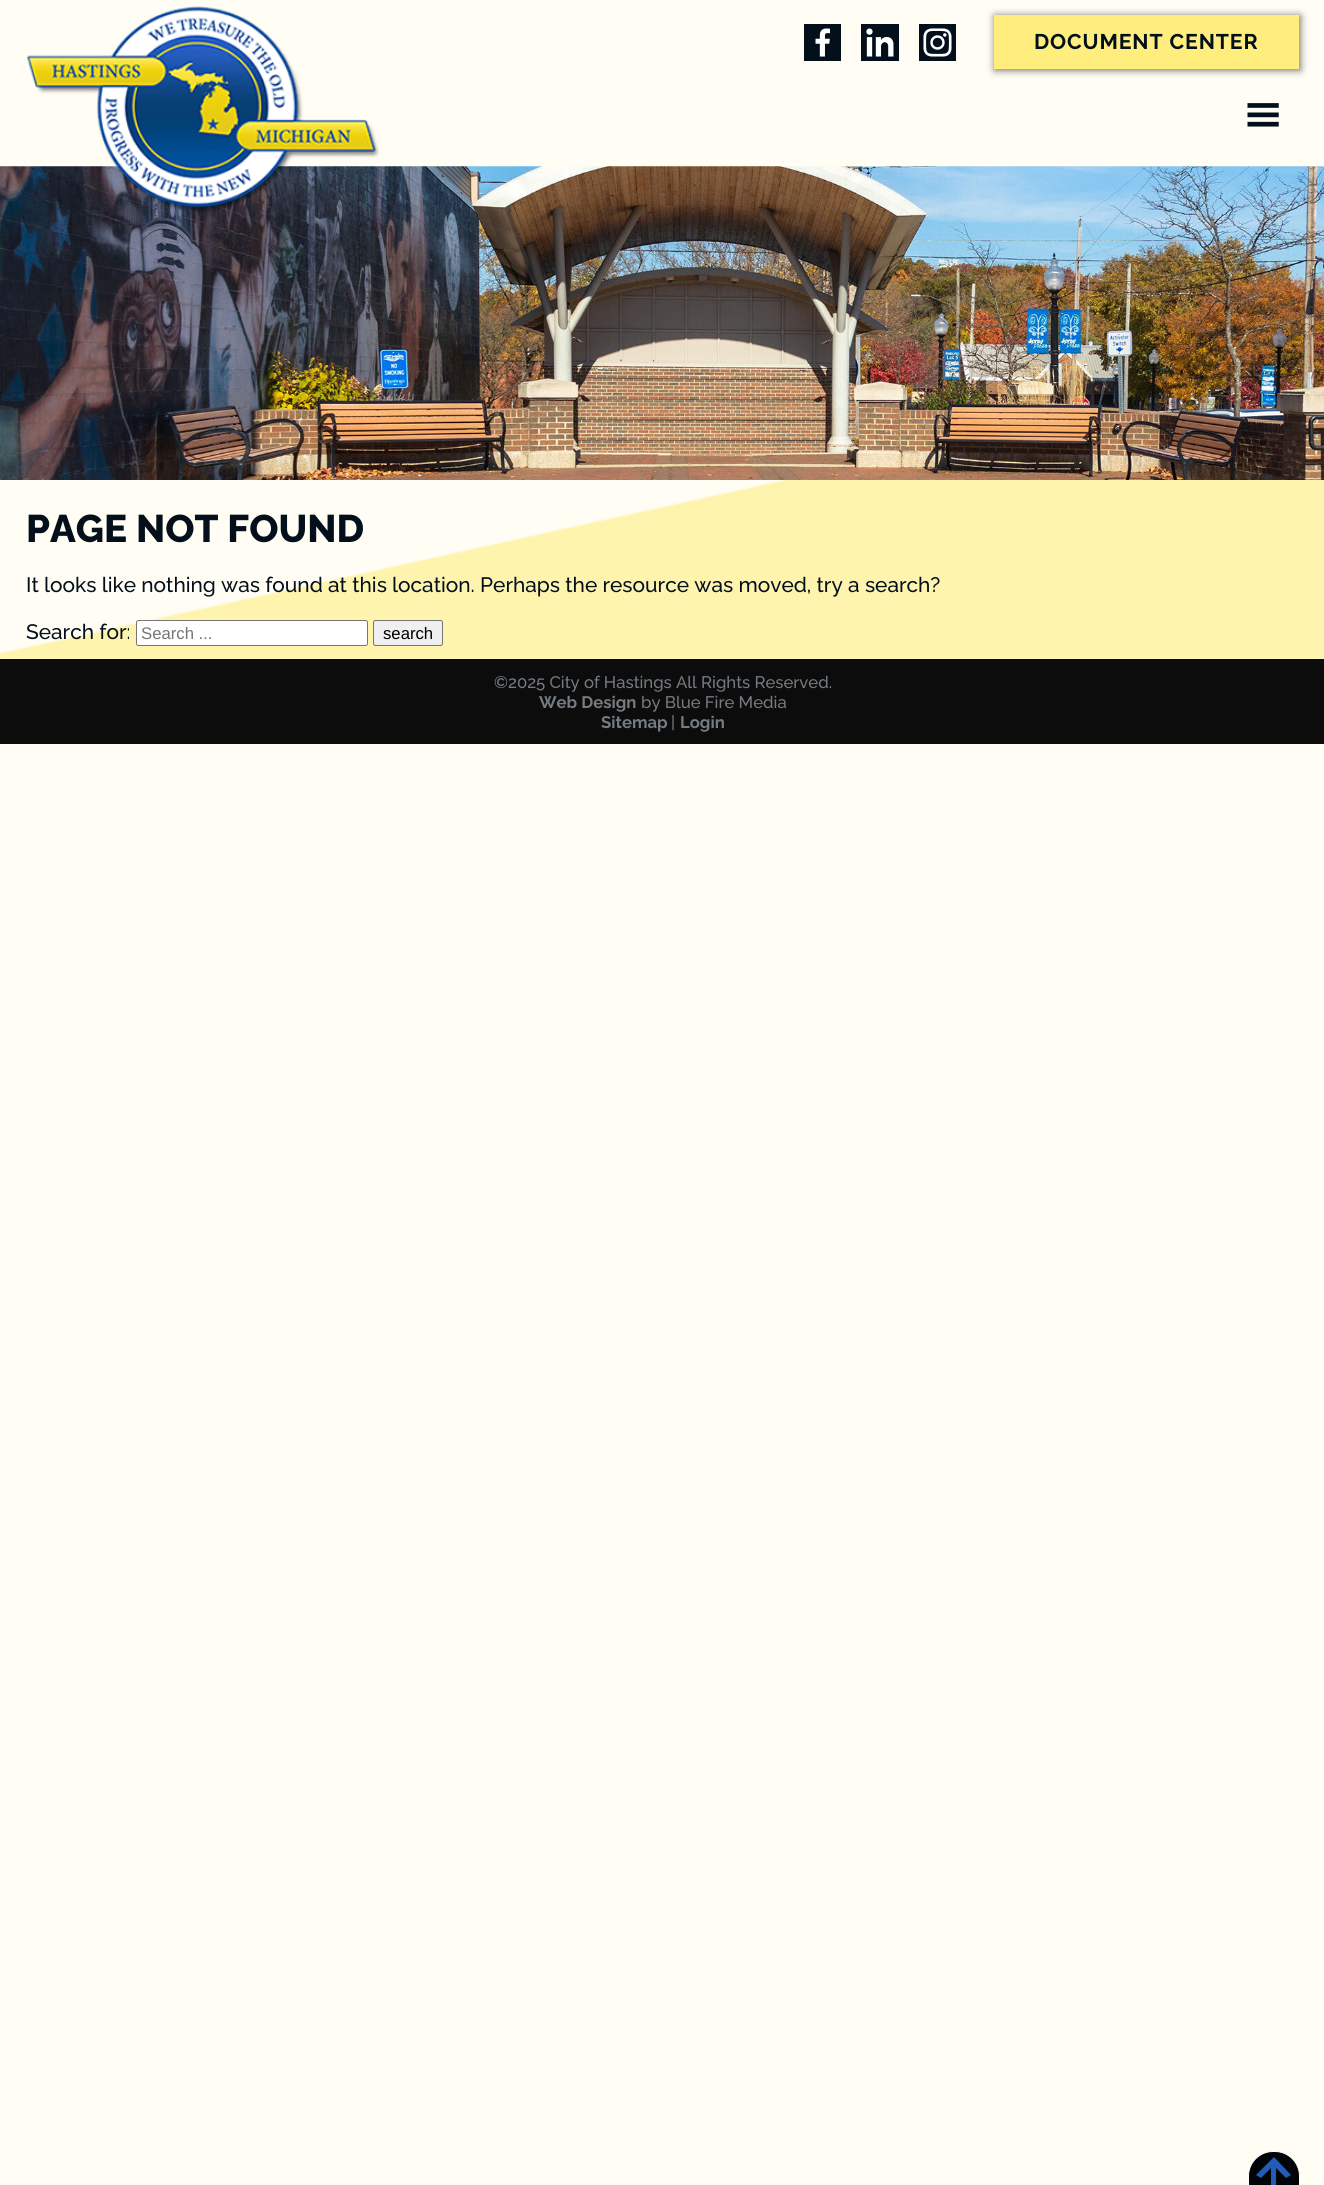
#include <cairo/cairo.h>
#include <math.h>
#include <stddef.h>

static cairo_t *cr;

static void rgb(unsigned color)
{
	cairo_set_source_rgb(cr, (color >> 16) / 255.0, (color >> 8 & 255) / 255.0, (color & 255) / 255.0);
}

static void tracked(double x, double y, const char *s, double letter, double word)
{
	cairo_move_to(cr, x, y);
	while (*s) {
		char ch[5] = {0};
		int n = 0;
		do ch[n++] = *s++; while ((*s & 0xC0) == 0x80);
		cairo_show_text(cr, ch);
		cairo_rel_move_to(cr, letter + word * (*ch == ' '), 0);
	}
}

static void rrect(double x, double y, double w, double h, double r)
{
	cairo_new_sub_path(cr);
	cairo_arc(cr, x + w - r, y + h - r, r, 0, M_PI / 2);
	cairo_arc(cr, x + r, y + h - r, r, M_PI / 2, M_PI);
	cairo_arc(cr, x + r, y + r, r, M_PI, 1.5 * M_PI);
	cairo_arc(cr, x + w - r, y + r, r, 1.5 * M_PI, 2 * M_PI);
	cairo_close_path(cr);
}

static void soft_shadow(double x, double y, double w, double h, double r, double blur, double alpha)
{
	cairo_push_group_with_content(cr, CAIRO_CONTENT_ALPHA);
	cairo_set_operator(cr, CAIRO_OPERATOR_SOURCE);
	for (int i = 15; i >= -15 && fmin(w, h) + blur * i / 3 > 0; i -= 2) {
		double e = blur * i / 6;
		cairo_set_source_rgba(cr, 0, 0, 0, alpha * erfc((i - 1) / 8.5) / 2);
		rrect(x - e, y - e, w + 2 * e, h + 2 * e, fmax(0, fmin(r + e + blur * .6, fmin(w, h) / 2 + e)));
		cairo_fill(cr);
	}
	cairo_pattern_t *soft = cairo_pop_group(cr);
	cairo_mask(cr, soft);
	cairo_pattern_destroy(soft);
}

static void image(const char *path, double x, double y, double w, double h)
{
	cairo_surface_t *image = cairo_image_surface_create_from_png(path);
	cairo_save(cr);
	cairo_set_source_surface(cr, image, x, y);
	cairo_rectangle(cr, x, y, w, h);
	cairo_fill(cr);
	cairo_restore(cr);
	cairo_surface_destroy(image);
}

int main(void) {
	cairo_surface_t *surface = cairo_image_surface_create(CAIRO_FORMAT_RGB24, 1324, 2185);
	cr = cairo_create(surface);
	cairo_font_options_t *options = cairo_font_options_create();
	cairo_font_options_set_hint_metrics(options, CAIRO_HINT_METRICS_OFF);
	cairo_font_options_set_hint_style(options, CAIRO_HINT_STYLE_NONE);
	cairo_set_font_options(cr, options);
	cairo_set_miter_limit(cr, 4);
	rgb(0xfffdf4);
	cairo_paint(cr);
	image("img/6.png", 0, 166, 1324, 314);
	image("img/1.png", 27, 6, 352, 206);
	rgb(0x03101c);
	cairo_rectangle(cr, 804, 24, 37, 37);
	cairo_fill(cr);
	image("img/2.png", 815, 28, 15, 29);
	cairo_rectangle(cr, 861, 24, 38, 37);
	cairo_fill(cr);
	image("img/3.png", 866, 28, 28, 29);
	cairo_rectangle(cr, 919, 24, 37, 37);
	cairo_fill(cr);
	image("img/4.png", 923, 28, 29, 29);
	rgb(0x000000);
	soft_shadow(995, 16, 305, 54, 0, 4, 0.6);
	rgb(0xffee7e);
	cairo_rectangle(cr, 994, 15, 305, 54);
	cairo_fill(cr);
	image("img/5.png", 1247, 103, 32, 24);
	image("img/7.png", 0, 480, 1324, 179);
	rgb(0xffffff);
	rrect(136.5, 620.5, 231, 25, 2);
	cairo_fill_preserve(cr);
	rgb(0x767676);
	cairo_set_line_width(cr, 1);
	cairo_stroke(cr);
	rgb(0xefefef);
	rrect(373.5, 620.5, 69, 25, 2);
	cairo_fill_preserve(cr);
	rgb(0x767676);
	cairo_stroke(cr);
	rgb(0x0c0c0c);
	cairo_rectangle(cr, 0, 659, 1324, 85);
	cairo_fill(cr);
	rgb(0x000407);
	cairo_new_path(cr);
	cairo_move_to(cr, 1273, 2151.5);
	cairo_line_to(cr, 1275, 2151.5);
	cairo_curve_to(cr, 1288.5, 2151.5, 1299.5, 2162.5, 1299.5, 2176);
	cairo_line_to(cr, 1299.5, 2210.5);
	cairo_line_to(cr, 1248.5, 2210.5);
	cairo_line_to(cr, 1248.5, 2176);
	cairo_curve_to(cr, 1248.5, 2162.5, 1259.5, 2151.5, 1273, 2151.5);
	cairo_close_path(cr);
	cairo_fill_preserve(cr);
	rgb(0xffffff);
	cairo_stroke(cr);
	rgb(0x235bb9);
	cairo_new_path(cr);
	cairo_move_to(cr, 1276, 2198);
	cairo_line_to(cr, 1271, 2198);
	cairo_line_to(cr, 1271, 2168);
	cairo_line_to(cr, 1261, 2178);
	cairo_line_to(cr, 1256, 2175);
	cairo_line_to(cr, 1274, 2157);
	cairo_line_to(cr, 1291, 2175);
	cairo_line_to(cr, 1286, 2178);
	cairo_line_to(cr, 1276, 2168);
	cairo_close_path(cr);
	cairo_fill(cr);
	cairo_select_font_face(cr, "Raleway", CAIRO_FONT_SLANT_NORMAL, CAIRO_FONT_WEIGHT_BOLD);
	cairo_set_font_size(cr, 21.25);
	rgb(0x03101c);
	tracked(1034, 49, "DOCUMENT CENTER", 0.9, 0);
	cairo_select_font_face(cr, "Raleway ExtraBold", CAIRO_FONT_SLANT_NORMAL, CAIRO_FONT_WEIGHT_NORMAL);
	cairo_set_font_size(cr, 38.5);
	cairo_move_to(cr, 26, 542);
	cairo_show_text(cr, "PAGE NOT FOUND");
	cairo_select_font_face(cr, "Raleway Medium", CAIRO_FONT_SLANT_NORMAL, CAIRO_FONT_WEIGHT_NORMAL);
	cairo_set_font_size(cr, 20.85);
	cairo_move_to(cr, 26, 592);
	cairo_show_text(cr, "It looks like nothing was found at this location. Perhaps the resource was moved, try a search?");
	cairo_move_to(cr, 26, 639);
	cairo_show_text(cr, "Search for:");
	cairo_select_font_face(cr, "Liberation Sans", CAIRO_FONT_SLANT_NORMAL, CAIRO_FONT_WEIGHT_NORMAL);
	cairo_set_font_size(cr, 16.7);
	rgb(0x757575);
	cairo_move_to(cr, 141, 639);
	cairo_show_text(cr, "Search ...");
	rgb(0x000000);
	cairo_move_to(cr, 383, 639);
	cairo_show_text(cr, "search");
	cairo_select_font_face(cr, "Raleway Medium", CAIRO_FONT_SLANT_NORMAL, CAIRO_FONT_WEIGHT_NORMAL);
	rgb(0x747b81);
	cairo_move_to(cr, 494, 688);
	cairo_show_text(cr, "©2025 City of Hastings All Rights Reserved.");
	cairo_select_font_face(cr, "Raleway", CAIRO_FONT_SLANT_NORMAL, CAIRO_FONT_WEIGHT_BOLD);
	cairo_move_to(cr, 539, 708);
	cairo_show_text(cr, "Web Design");
	cairo_select_font_face(cr, "Raleway Medium", CAIRO_FONT_SLANT_NORMAL, CAIRO_FONT_WEIGHT_NORMAL);
	cairo_move_to(cr, 641, 708);
	cairo_show_text(cr, "by Blue Fire Media");
	cairo_select_font_face(cr, "Raleway", CAIRO_FONT_SLANT_NORMAL, CAIRO_FONT_WEIGHT_BOLD);
	cairo_move_to(cr, 601, 728);
	cairo_show_text(cr, "Sitemap");
	cairo_select_font_face(cr, "Raleway Medium", CAIRO_FONT_SLANT_NORMAL, CAIRO_FONT_WEIGHT_NORMAL);
	cairo_move_to(cr, 671, 728);
	cairo_show_text(cr, "|");
	cairo_select_font_face(cr, "Raleway", CAIRO_FONT_SLANT_NORMAL, CAIRO_FONT_WEIGHT_BOLD);
	cairo_move_to(cr, 680, 728);
	cairo_show_text(cr, "Login");
	cairo_surface_write_to_png(surface, "page.png");
	cairo_font_options_destroy(options);
	cairo_destroy(cr);
	cairo_surface_destroy(surface);
	return 0;
}
